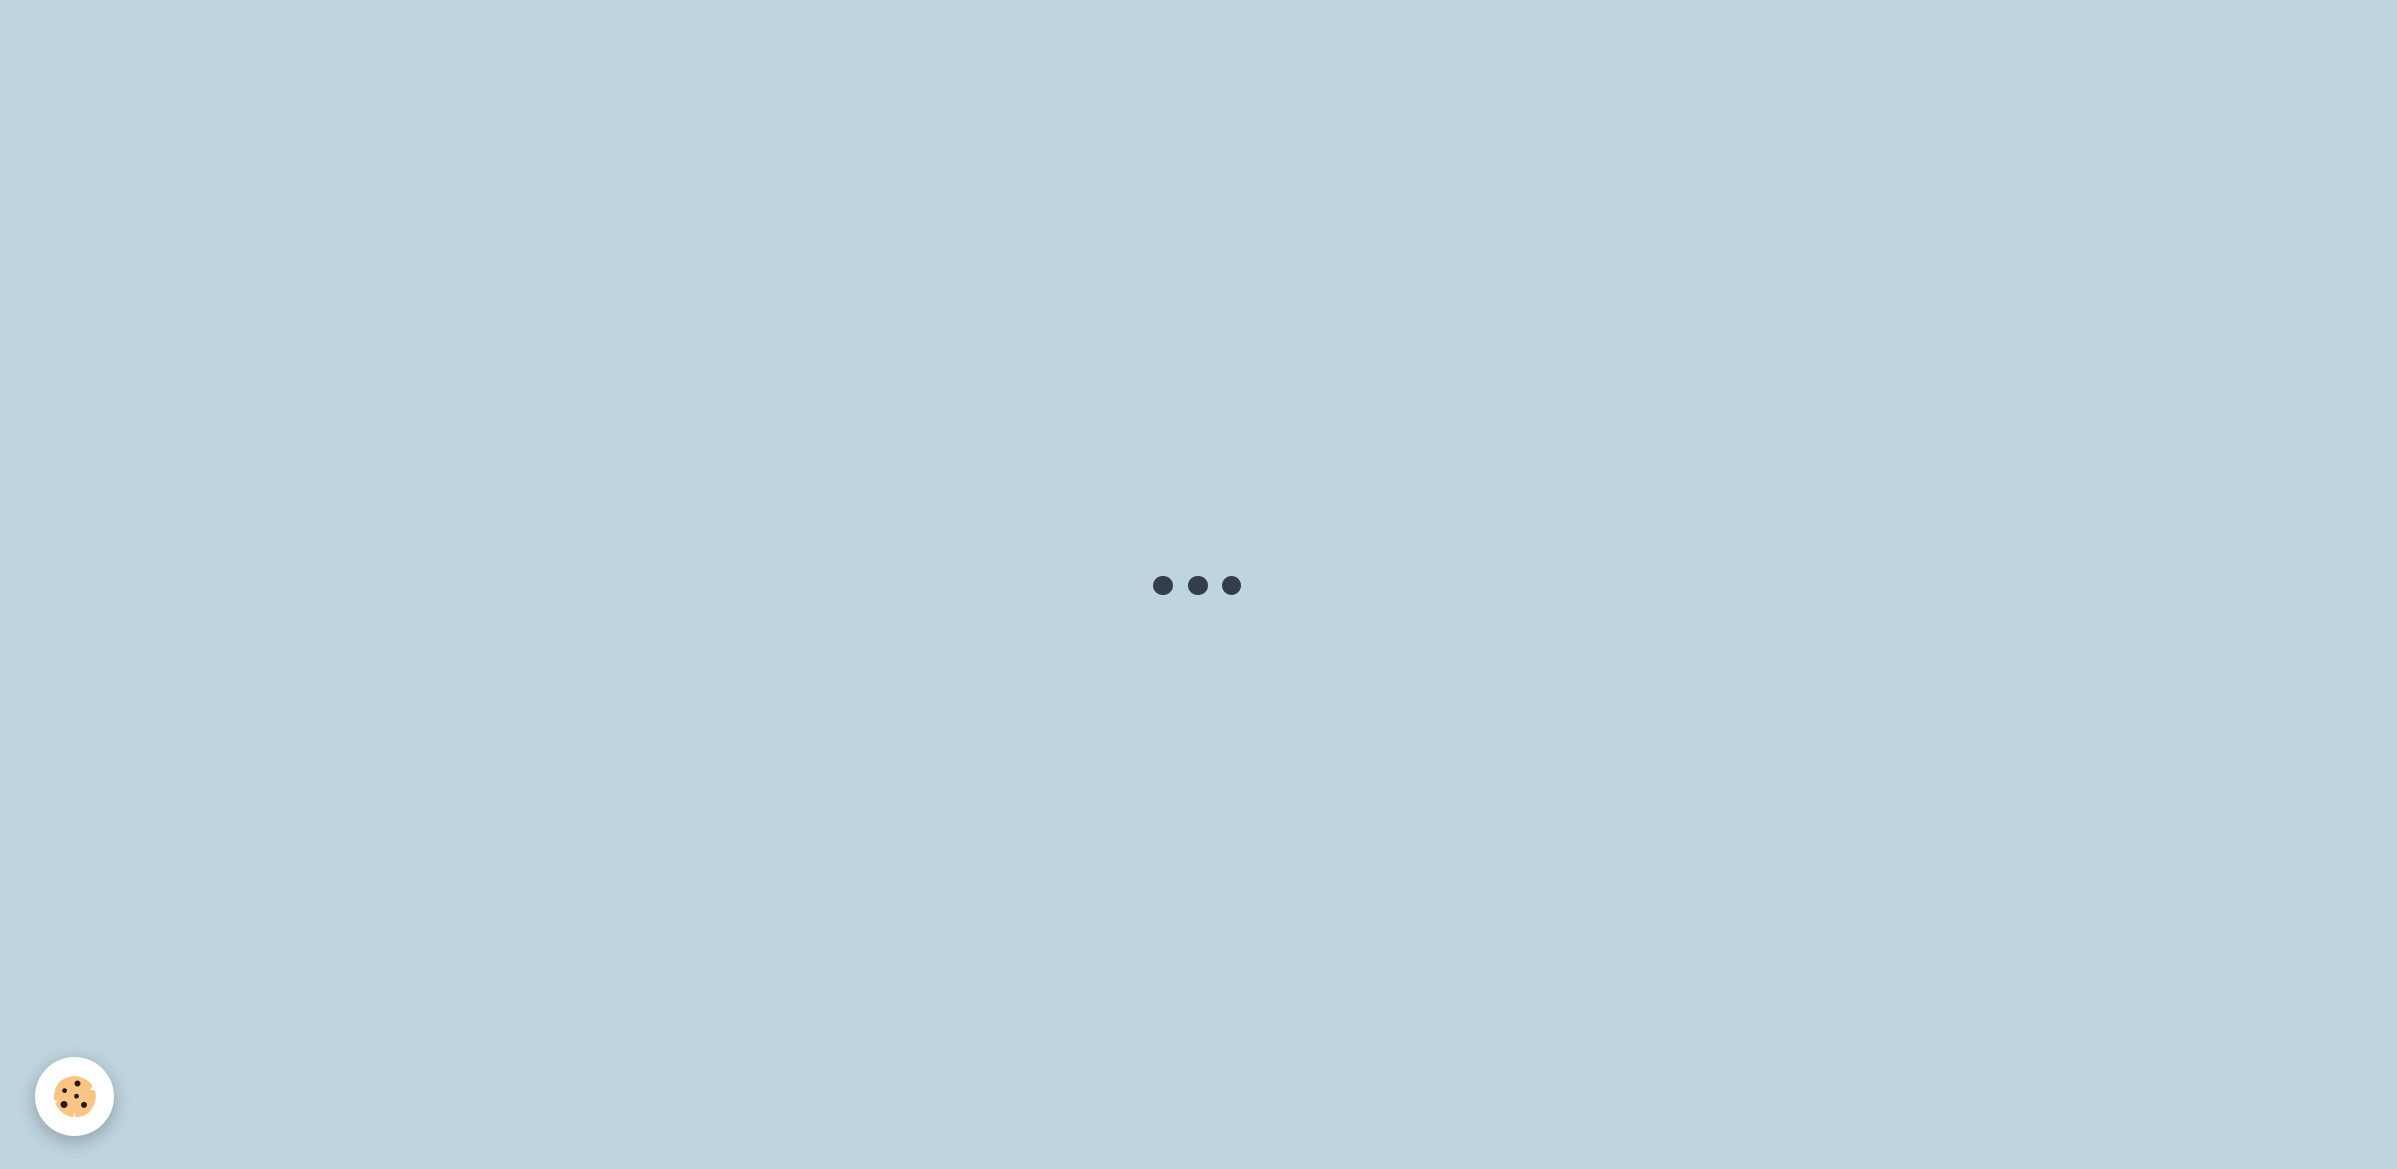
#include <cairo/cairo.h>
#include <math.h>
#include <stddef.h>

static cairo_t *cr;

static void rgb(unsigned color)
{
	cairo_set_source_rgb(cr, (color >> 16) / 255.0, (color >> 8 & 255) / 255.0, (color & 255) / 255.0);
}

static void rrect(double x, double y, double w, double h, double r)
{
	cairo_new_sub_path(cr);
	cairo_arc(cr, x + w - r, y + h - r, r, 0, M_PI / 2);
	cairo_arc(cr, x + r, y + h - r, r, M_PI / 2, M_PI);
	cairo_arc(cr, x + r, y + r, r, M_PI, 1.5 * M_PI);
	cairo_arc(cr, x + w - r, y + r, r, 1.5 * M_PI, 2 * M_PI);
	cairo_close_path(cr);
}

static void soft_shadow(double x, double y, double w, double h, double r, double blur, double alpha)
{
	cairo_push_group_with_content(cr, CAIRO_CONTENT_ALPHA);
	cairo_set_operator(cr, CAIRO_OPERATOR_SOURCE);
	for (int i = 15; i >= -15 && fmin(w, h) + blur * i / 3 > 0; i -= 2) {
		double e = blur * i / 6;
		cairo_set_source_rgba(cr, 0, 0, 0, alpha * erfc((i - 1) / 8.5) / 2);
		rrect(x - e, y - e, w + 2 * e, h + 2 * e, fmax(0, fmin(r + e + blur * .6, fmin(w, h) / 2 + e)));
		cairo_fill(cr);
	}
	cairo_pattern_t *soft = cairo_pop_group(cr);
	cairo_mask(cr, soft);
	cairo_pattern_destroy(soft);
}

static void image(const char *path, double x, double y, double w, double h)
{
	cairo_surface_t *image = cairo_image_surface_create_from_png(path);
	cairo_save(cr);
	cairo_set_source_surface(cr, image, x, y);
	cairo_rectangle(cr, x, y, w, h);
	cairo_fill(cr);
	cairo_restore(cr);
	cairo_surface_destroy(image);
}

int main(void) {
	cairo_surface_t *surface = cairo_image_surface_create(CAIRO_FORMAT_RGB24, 2397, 1169);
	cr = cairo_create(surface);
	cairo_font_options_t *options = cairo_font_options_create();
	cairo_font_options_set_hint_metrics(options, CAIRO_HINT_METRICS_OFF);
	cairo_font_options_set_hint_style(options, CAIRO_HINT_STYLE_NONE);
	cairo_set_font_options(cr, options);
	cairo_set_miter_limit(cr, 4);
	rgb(0xbed4df);
	cairo_paint(cr);
	rgb(0x323e4e);
	rrect(1153, 576, 20, 19, 9.5);
	cairo_fill(cr);
	rrect(1188, 576, 20, 19, 9.5);
	cairo_fill(cr);
	cairo_arc(cr, 1231.5, 585.5, 9.5, 0, 2 * M_PI);
	cairo_fill(cr);
	rgb(0x000000);
	soft_shadow(35, 1062, 79, 79, 39.5, 9, 0.24);
	rgb(0xffffff);
	cairo_arc(cr, 74.5, 1096.5, 39.5, 0, 2 * M_PI);
	cairo_fill(cr);
	image("img/1.png", 53, 1076, 43, 42);
	cairo_surface_write_to_png(surface, "page.png");
	cairo_font_options_destroy(options);
	cairo_destroy(cr);
	cairo_surface_destroy(surface);
	return 0;
}
